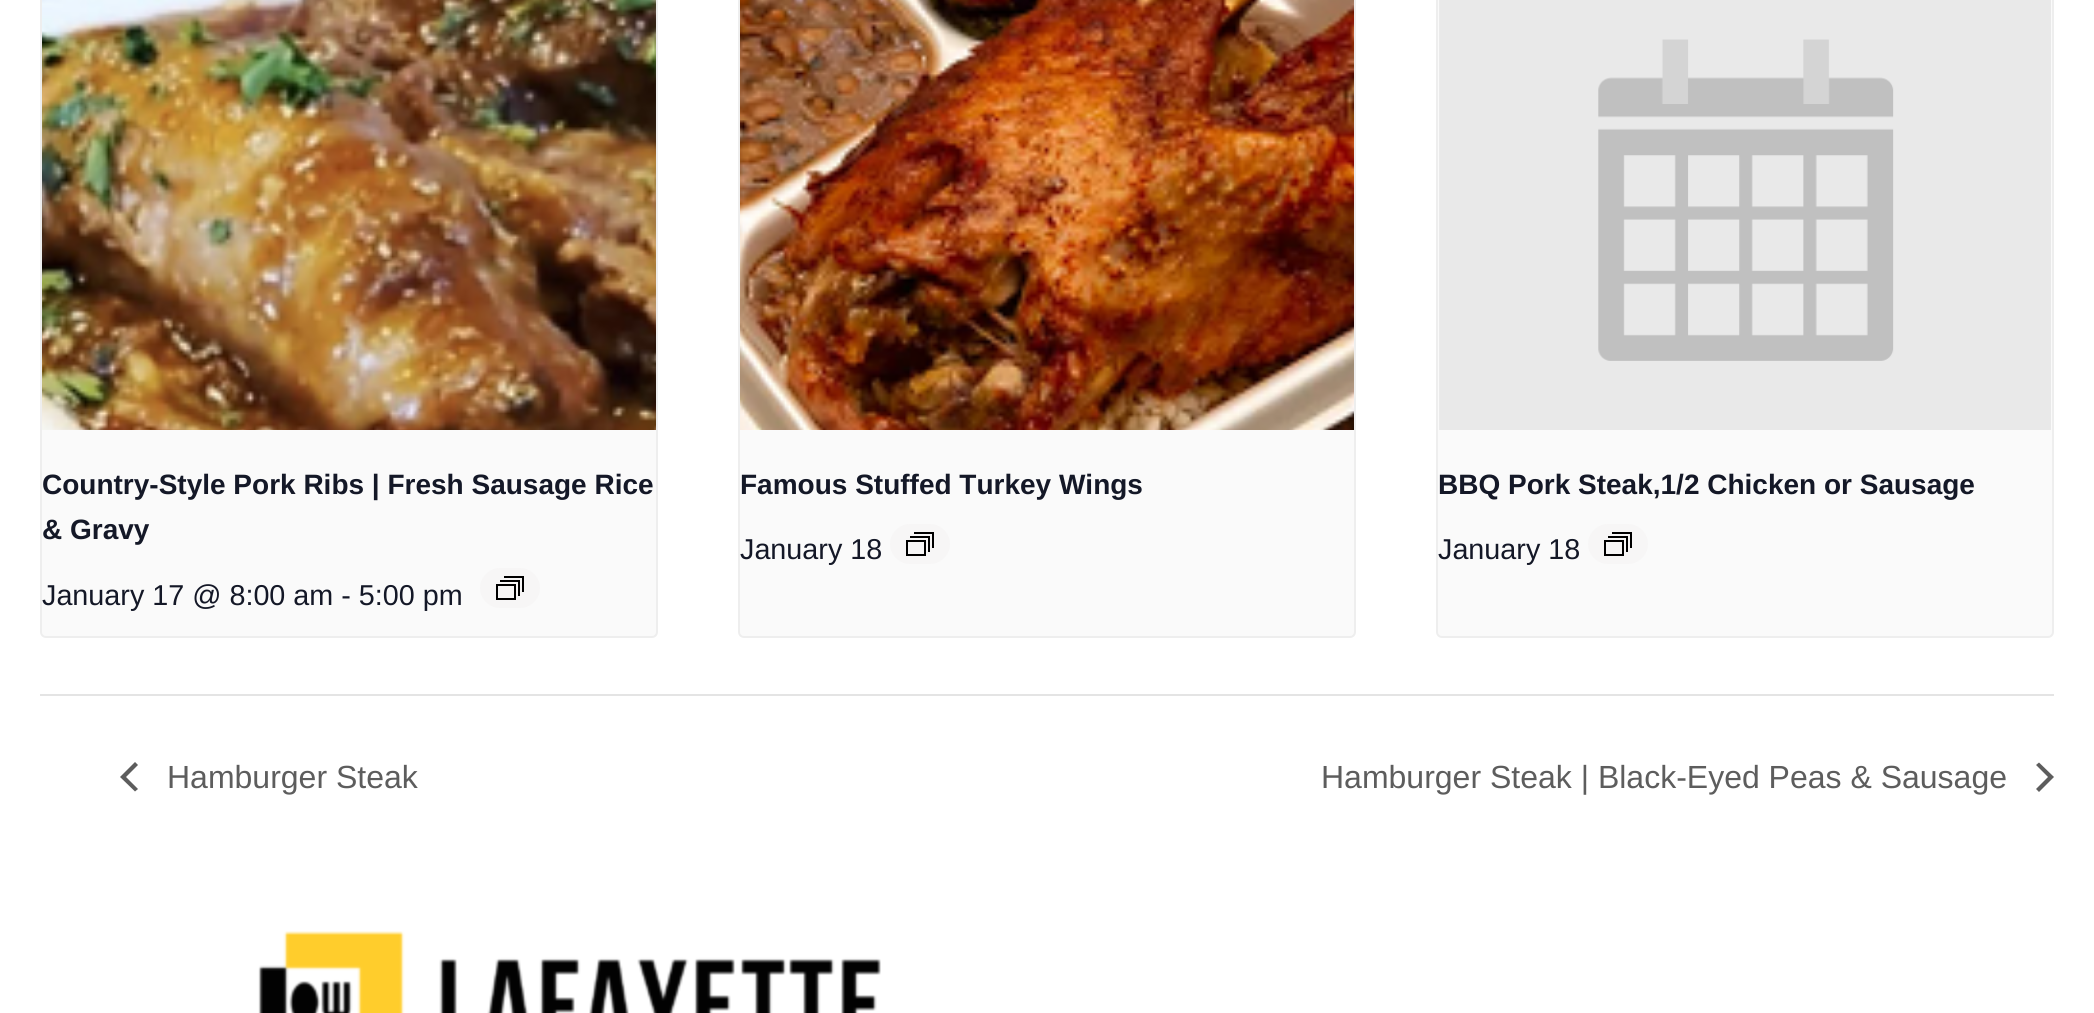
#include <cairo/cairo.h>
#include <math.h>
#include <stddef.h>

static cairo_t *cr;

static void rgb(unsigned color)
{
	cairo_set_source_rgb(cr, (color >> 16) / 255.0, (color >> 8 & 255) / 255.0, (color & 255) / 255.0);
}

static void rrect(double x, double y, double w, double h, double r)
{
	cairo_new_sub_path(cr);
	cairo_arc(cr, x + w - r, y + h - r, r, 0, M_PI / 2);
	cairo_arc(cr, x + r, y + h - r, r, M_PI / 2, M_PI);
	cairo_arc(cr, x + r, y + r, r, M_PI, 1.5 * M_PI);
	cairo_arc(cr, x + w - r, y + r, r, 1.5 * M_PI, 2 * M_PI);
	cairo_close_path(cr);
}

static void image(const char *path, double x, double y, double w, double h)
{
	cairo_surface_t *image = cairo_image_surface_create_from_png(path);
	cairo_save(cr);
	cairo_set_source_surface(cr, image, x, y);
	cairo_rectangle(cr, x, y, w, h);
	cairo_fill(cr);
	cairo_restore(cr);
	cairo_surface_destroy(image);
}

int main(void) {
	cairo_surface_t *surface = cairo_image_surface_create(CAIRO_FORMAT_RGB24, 2094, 1013);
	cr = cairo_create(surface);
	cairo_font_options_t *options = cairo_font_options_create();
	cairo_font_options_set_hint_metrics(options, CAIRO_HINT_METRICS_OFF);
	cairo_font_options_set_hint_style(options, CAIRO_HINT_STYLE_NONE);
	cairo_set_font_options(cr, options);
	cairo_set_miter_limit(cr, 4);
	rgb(0xffffff);
	cairo_paint(cr);
	rgb(0xfafafa);
	rrect(41, -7, 616, 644, 5);
	cairo_fill_preserve(cr);
	rgb(0xeeeeee);
	cairo_stroke(cr);
	image("img/1.png", 42, 0, 614, 430);
	rgb(0xf7f6f6);
	rrect(480, 568, 60, 40, 20);
	cairo_fill(cr);
	cairo_rectangle(cr, 497, 585, 18, 14);
	rgb(0x000000);
	cairo_stroke(cr);
	cairo_new_path(cr);
	cairo_move_to(cr, 500, 581);
	cairo_line_to(cr, 519, 581);
	cairo_line_to(cr, 519, 596);
	cairo_move_to(cr, 504, 577);
	cairo_line_to(cr, 523, 577);
	cairo_line_to(cr, 523, 592);
	cairo_stroke(cr);
	rgb(0xfafafa);
	rrect(739, -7, 616, 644, 5);
	cairo_fill_preserve(cr);
	rgb(0xeeeeee);
	cairo_stroke(cr);
	image("img/2.png", 740, 0, 614, 430);
	rgb(0xf7f6f6);
	rrect(890, 524, 60, 40, 20);
	cairo_fill(cr);
	cairo_rectangle(cr, 907, 541, 18, 14);
	rgb(0x000000);
	cairo_stroke(cr);
	cairo_new_path(cr);
	cairo_move_to(cr, 910, 537);
	cairo_line_to(cr, 929, 537);
	cairo_line_to(cr, 929, 552);
	cairo_move_to(cr, 914, 533);
	cairo_line_to(cr, 933, 533);
	cairo_line_to(cr, 933, 548);
	cairo_stroke(cr);
	rgb(0xfafafa);
	rrect(1437, -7, 616, 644, 5);
	cairo_fill_preserve(cr);
	rgb(0xeeeeee);
	cairo_stroke(cr);
	image("img/3.png", 1439, 0, 612, 430);
	rgb(0xf7f6f6);
	rrect(1588, 524, 60, 40, 20);
	cairo_fill(cr);
	cairo_rectangle(cr, 1605, 541, 18, 14);
	rgb(0x000000);
	cairo_stroke(cr);
	cairo_new_path(cr);
	cairo_move_to(cr, 1608, 537);
	cairo_line_to(cr, 1627, 537);
	cairo_line_to(cr, 1627, 552);
	cairo_move_to(cr, 1612, 533);
	cairo_line_to(cr, 1631, 533);
	cairo_line_to(cr, 1631, 548);
	cairo_stroke(cr);
	rgb(0xe4e4e4);
	cairo_rectangle(cr, 40, 694, 2014, 2);
	cairo_fill(cr);
	rgb(0x5d5d5d);
	cairo_new_path(cr);
	cairo_move_to(cr, 138, 789);
	cairo_line_to(cr, 135, 791.5);
	cairo_line_to(cr, 120, 777);
	cairo_line_to(cr, 135, 762);
	cairo_line_to(cr, 138, 765);
	cairo_line_to(cr, 126, 777);
	cairo_close_path(cr);
	cairo_fill(cr);
	cairo_new_path(cr);
	cairo_move_to(cr, 2036, 765);
	cairo_line_to(cr, 2039, 762.5);
	cairo_line_to(cr, 2054, 777);
	cairo_line_to(cr, 2039, 792);
	cairo_line_to(cr, 2036, 789);
	cairo_line_to(cr, 2048, 777);
	cairo_close_path(cr);
	cairo_fill(cr);
	image("img/4.png", 258, 931, 623, 82);
	cairo_select_font_face(cr, "Liberation Sans", CAIRO_FONT_SLANT_NORMAL, CAIRO_FONT_WEIGHT_BOLD);
	cairo_set_font_size(cr, 28);
	rgb(0x141827);
	cairo_move_to(cr, 42, 494);
	cairo_show_text(cr, "Country-Style Pork Ribs | Fresh Sausage Rice");
	cairo_move_to(cr, 42, 539);
	cairo_show_text(cr, "& Gravy");
	cairo_select_font_face(cr, "Liberation Sans", CAIRO_FONT_SLANT_NORMAL, CAIRO_FONT_WEIGHT_NORMAL);
	cairo_set_font_size(cr, 28.75);
	cairo_move_to(cr, 42, 605);
	cairo_show_text(cr, "January 17 @ 8:00 am - 5:00 pm");
	cairo_select_font_face(cr, "Liberation Sans", CAIRO_FONT_SLANT_NORMAL, CAIRO_FONT_WEIGHT_BOLD);
	cairo_set_font_size(cr, 28);
	cairo_move_to(cr, 740, 494);
	cairo_show_text(cr, "Famous Stuffed Turkey Wings");
	cairo_select_font_face(cr, "Liberation Sans", CAIRO_FONT_SLANT_NORMAL, CAIRO_FONT_WEIGHT_NORMAL);
	cairo_set_font_size(cr, 28.75);
	cairo_move_to(cr, 740, 559);
	cairo_show_text(cr, "January 18");
	cairo_select_font_face(cr, "Liberation Sans", CAIRO_FONT_SLANT_NORMAL, CAIRO_FONT_WEIGHT_BOLD);
	cairo_set_font_size(cr, 28);
	cairo_move_to(cr, 1438, 494);
	cairo_show_text(cr, "BBQ Pork Steak,1/2 Chicken or Sausage");
	cairo_select_font_face(cr, "Liberation Sans", CAIRO_FONT_SLANT_NORMAL, CAIRO_FONT_WEIGHT_NORMAL);
	cairo_set_font_size(cr, 28.75);
	cairo_move_to(cr, 1438, 559);
	cairo_show_text(cr, "January 18");
	cairo_set_font_size(cr, 32);
	rgb(0x5d5d5d);
	cairo_move_to(cr, 167, 788);
	cairo_show_text(cr, "Hamburger Steak");
	cairo_move_to(cr, 1321, 788);
	cairo_show_text(cr, "Hamburger Steak | Black-Eyed Peas & Sausage");
	cairo_surface_write_to_png(surface, "page.png");
	cairo_font_options_destroy(options);
	cairo_destroy(cr);
	cairo_surface_destroy(surface);
	return 0;
}
